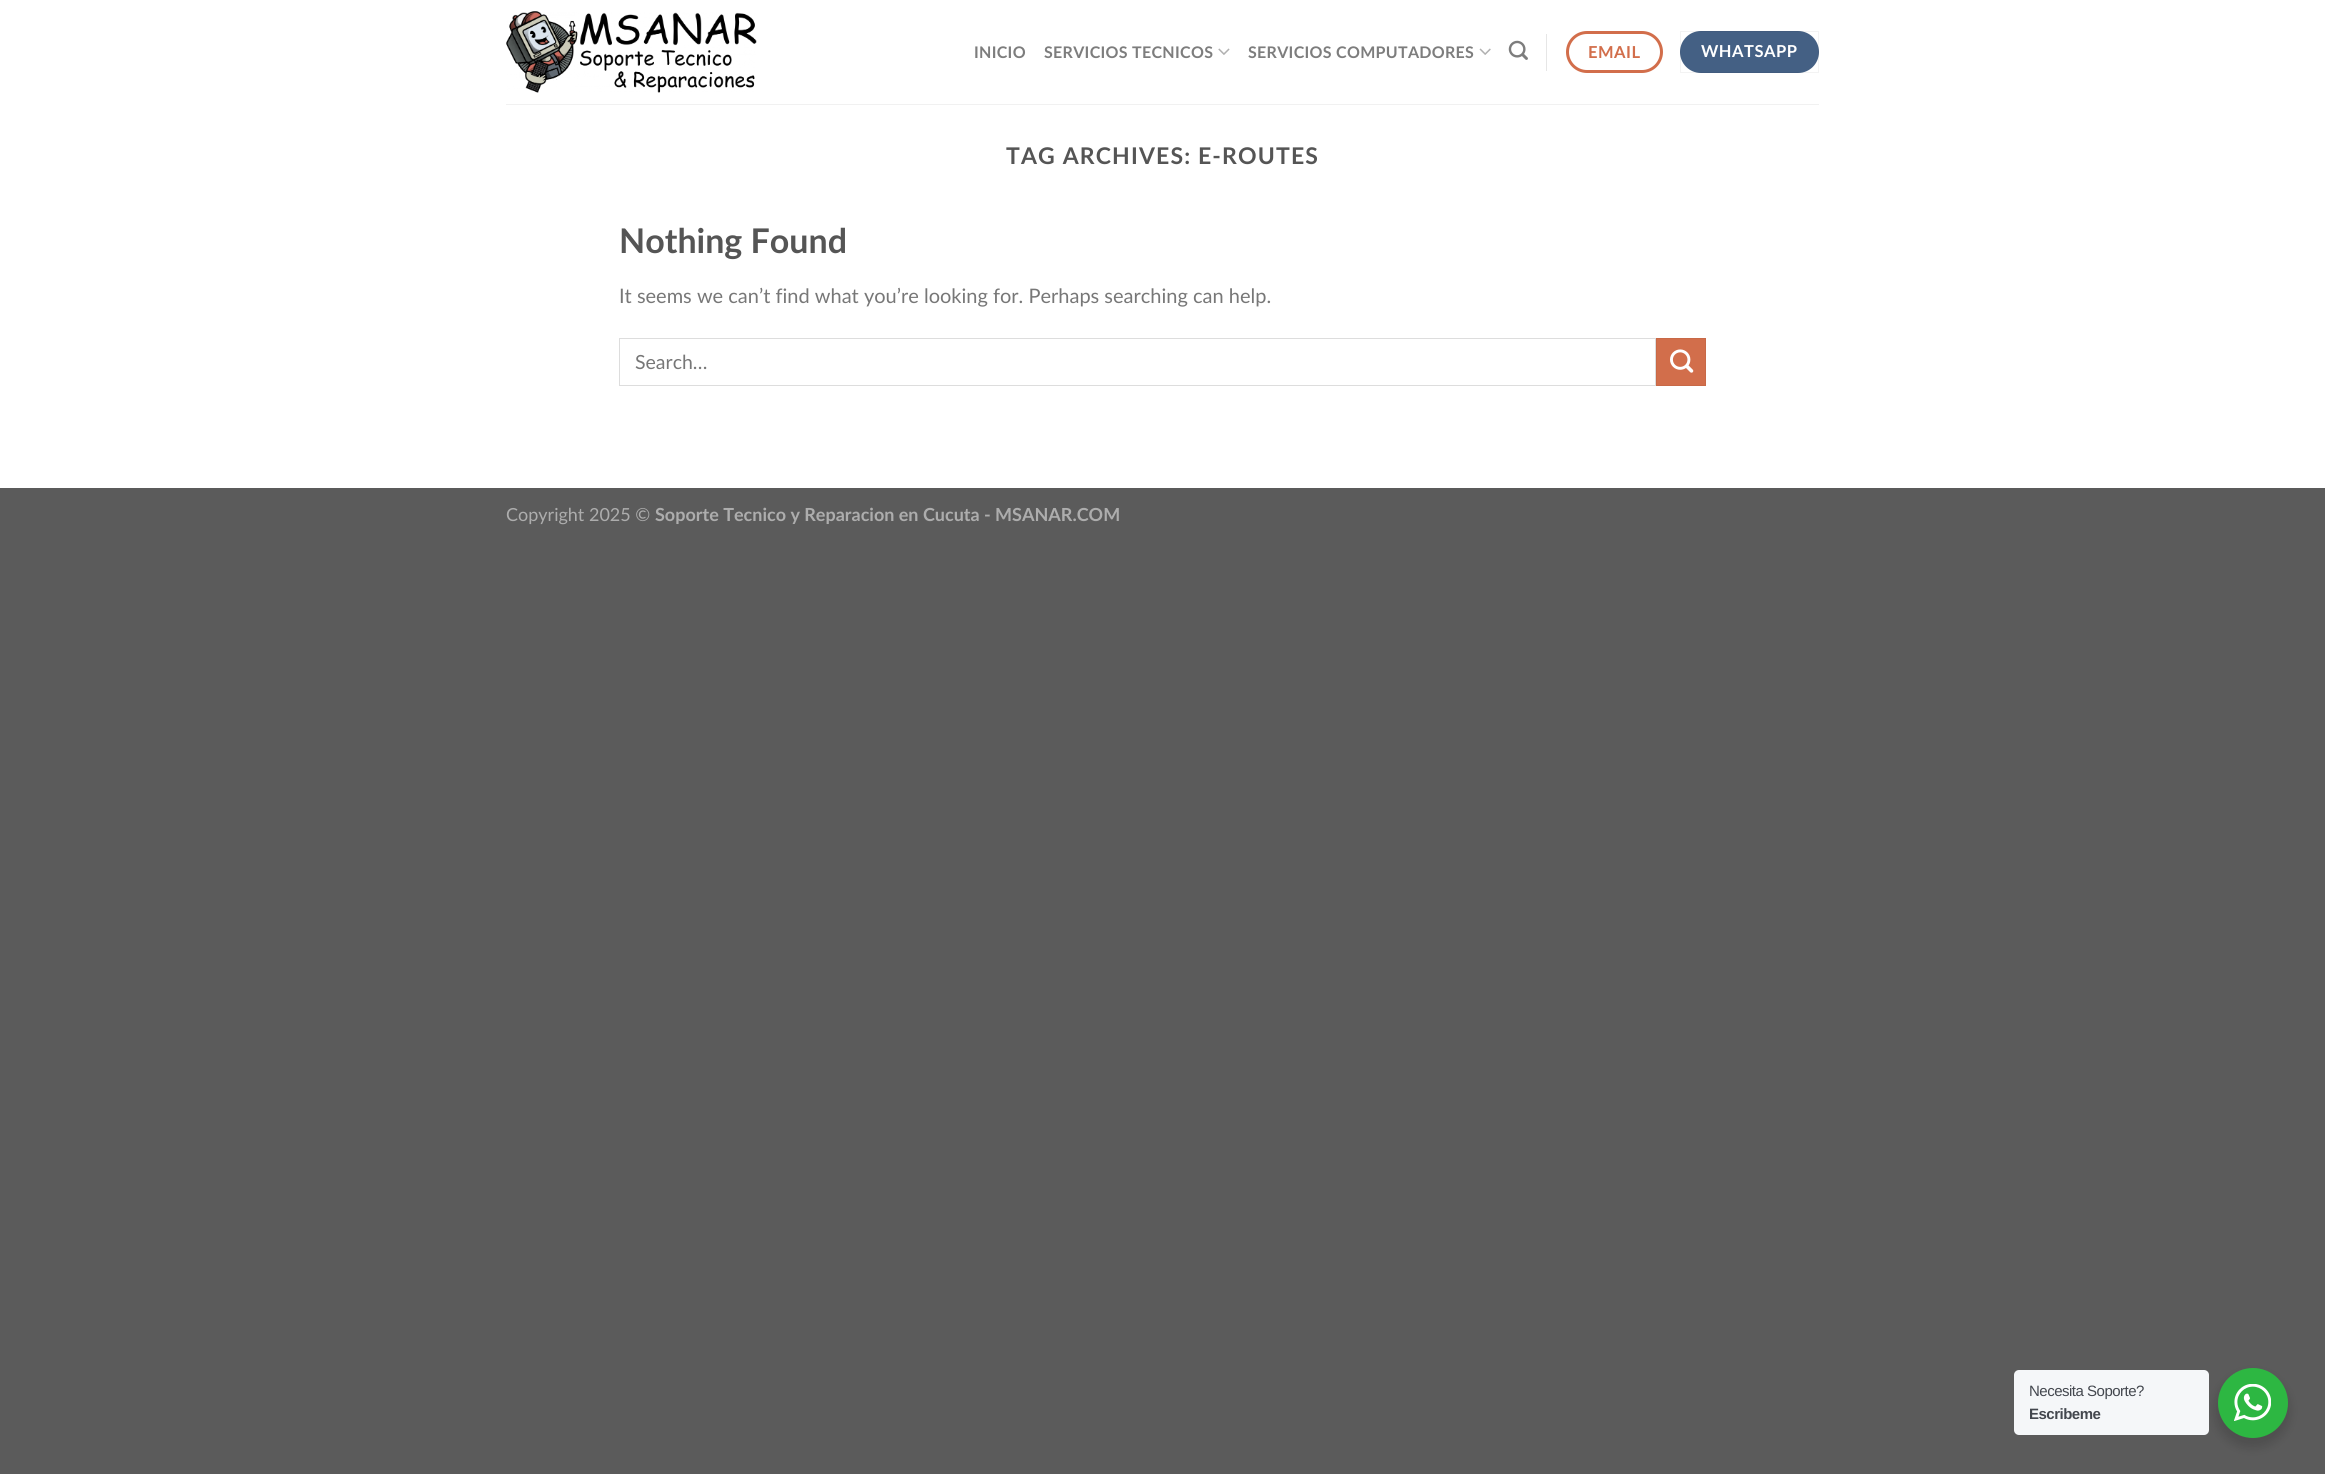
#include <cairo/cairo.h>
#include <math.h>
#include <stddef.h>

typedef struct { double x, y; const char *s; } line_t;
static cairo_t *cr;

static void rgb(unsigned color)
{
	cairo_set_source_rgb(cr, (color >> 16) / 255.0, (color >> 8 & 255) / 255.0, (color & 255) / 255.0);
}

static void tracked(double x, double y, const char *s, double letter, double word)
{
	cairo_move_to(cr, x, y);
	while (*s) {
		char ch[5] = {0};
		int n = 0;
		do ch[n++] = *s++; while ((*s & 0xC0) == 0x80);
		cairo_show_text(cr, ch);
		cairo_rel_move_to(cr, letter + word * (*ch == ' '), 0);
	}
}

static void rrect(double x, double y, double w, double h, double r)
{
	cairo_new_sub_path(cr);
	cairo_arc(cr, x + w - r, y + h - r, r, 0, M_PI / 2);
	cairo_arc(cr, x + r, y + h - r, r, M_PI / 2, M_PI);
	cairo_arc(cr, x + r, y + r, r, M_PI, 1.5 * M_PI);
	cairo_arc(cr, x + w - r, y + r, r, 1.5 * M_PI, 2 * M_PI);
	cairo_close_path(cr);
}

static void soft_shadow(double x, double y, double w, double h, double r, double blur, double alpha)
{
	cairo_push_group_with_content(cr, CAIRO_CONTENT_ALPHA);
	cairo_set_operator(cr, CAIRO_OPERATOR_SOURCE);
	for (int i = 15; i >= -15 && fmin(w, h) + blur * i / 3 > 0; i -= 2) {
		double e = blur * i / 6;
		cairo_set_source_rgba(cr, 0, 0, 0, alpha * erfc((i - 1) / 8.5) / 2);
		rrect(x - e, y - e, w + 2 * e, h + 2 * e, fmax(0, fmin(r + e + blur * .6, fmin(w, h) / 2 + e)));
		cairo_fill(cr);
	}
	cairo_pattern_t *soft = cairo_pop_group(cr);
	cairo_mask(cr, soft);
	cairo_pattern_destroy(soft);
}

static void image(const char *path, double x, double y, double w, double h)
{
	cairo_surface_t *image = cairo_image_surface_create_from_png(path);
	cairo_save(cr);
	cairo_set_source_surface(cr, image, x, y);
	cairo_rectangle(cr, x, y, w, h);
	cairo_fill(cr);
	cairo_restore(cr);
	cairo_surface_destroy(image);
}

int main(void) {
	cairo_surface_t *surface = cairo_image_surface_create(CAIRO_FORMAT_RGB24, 2325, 1474);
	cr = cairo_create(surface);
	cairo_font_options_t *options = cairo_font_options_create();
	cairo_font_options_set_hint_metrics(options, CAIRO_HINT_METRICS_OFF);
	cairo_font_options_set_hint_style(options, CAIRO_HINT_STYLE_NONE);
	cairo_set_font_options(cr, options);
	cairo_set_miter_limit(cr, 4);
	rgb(0x5b5b5b);
	cairo_paint(cr);
	rgb(0xffffff);
	cairo_rectangle(cr, 0, 0, 2325, 488);
	cairo_fill(cr);
	image("img/1.png", 506, 11, 251, 82);
	image("img/2.png", 1218, 48, 12, 7);
	image("img/3.png", 1479, 48, 12, 7);
	image("img/4.png", 1508, 40, 20, 20);
	rgb(0xe6e6e6);
	cairo_rectangle(cr, 1546, 34, 1, 37);
	cairo_fill(cr);
	rrect(1567.5, 32.5, 94, 39, 19.5);
	rgb(0xd26e4b);
	cairo_set_line_width(cr, 3);
	cairo_stroke(cr);
	rgb(0x446084);
	rrect(1680, 31, 139, 42, 21);
	cairo_fill(cr);
	cairo_rectangle(cr, 1680.5, 31.5, 138, 41);
	cairo_set_source_rgba(cr, 0, 0, 0, 0.05);
	cairo_set_line_width(cr, 1);
	cairo_stroke(cr);
	rgb(0xf1f1f1);
	cairo_rectangle(cr, 506, 104, 1313, 1);
	cairo_fill(cr);
	cairo_rectangle(cr, 619.5, 338.5, 1036, 47);
	rgb(0xdddddd);
	cairo_stroke(cr);
	rgb(0xd26e4b);
	cairo_rectangle(cr, 1656.5, 338.5, 49, 47);
	cairo_fill_preserve(cr);
	rgb(0xc86947);
	cairo_stroke(cr);
	image("img/5.png", 1670, 349, 24, 24);
	rgb(0x000000);
	soft_shadow(2215, 1373, 75, 75, 37.5, 5, 0.14);
	rgb(0xf5f7f9);
	rrect(2014, 1370, 195, 65, 5);
	cairo_fill(cr);
	rgb(0x2db742);
	cairo_arc(cr, 2253, 1403, 35, 0, 2 * M_PI);
	cairo_fill(cr);
	image("img/6.png", 2234, 1384, 37, 37);
	cairo_select_font_face(cr, "Lato", CAIRO_FONT_SLANT_NORMAL, CAIRO_FONT_WEIGHT_BOLD);
	cairo_set_font_size(cr, 16);
	rgb(0x7d7d7d);
	{
		static const line_t items[] = {
			{974, 58, "INICIO"},
			{1044, 58, "SERVICIOS TECNICOS"},
			{1248, 58, "SERVICIOS COMPUTADORES"},
		};
		for (size_t i = 0; i < sizeof items / sizeof *items; i++) {
			tracked(items[i].x, items[i].y, items[i].s, 0.3, 0);
		}
	}
	cairo_set_font_size(cr, 16.5);
	rgb(0xd26e4b);
	tracked(1588, 58, "EMAIL", 0.5, 0);
	rgb(0xffffff);
	tracked(1701, 57, "WHATSAPP", 0.5, 0);
	cairo_set_font_size(cr, 23);
	rgb(0x555555);
	tracked(1006, 164, "TAG ARCHIVES: E-ROUTES", 1.15, 0);
	cairo_set_font_size(cr, 34);
	cairo_move_to(cr, 619, 253);
	cairo_show_text(cr, "Nothing Found");
	cairo_select_font_face(cr, "Lato", CAIRO_FONT_SLANT_NORMAL, CAIRO_FONT_WEIGHT_NORMAL);
	cairo_set_font_size(cr, 20);
	rgb(0x777777);
	cairo_move_to(cr, 619, 303);
	cairo_show_text(cr, "It seems we can’t find what you’re looking for. Perhaps searching can help.");
	cairo_set_font_size(cr, 19.5);
	cairo_move_to(cr, 635, 369);
	cairo_show_text(cr, "Search…");
	cairo_set_font_size(cr, 18);
	rgb(0xadadad);
	cairo_move_to(cr, 506, 521);
	cairo_show_text(cr, "Copyright 2025 ©");
	cairo_select_font_face(cr, "Lato", CAIRO_FONT_SLANT_NORMAL, CAIRO_FONT_WEIGHT_BOLD);
	cairo_move_to(cr, 655, 521);
	cairo_show_text(cr, "Soporte Tecnico y Reparacion en Cucuta - MSANAR.COM");
	cairo_select_font_face(cr, "Liberation Sans", CAIRO_FONT_SLANT_NORMAL, CAIRO_FONT_WEIGHT_NORMAL);
	cairo_set_font_size(cr, 15);
	rgb(0x43474e);
	tracked(2029, 1396, "Necesita Soporte?", -0.5, 0);
	cairo_select_font_face(cr, "Liberation Sans", CAIRO_FONT_SLANT_NORMAL, CAIRO_FONT_WEIGHT_BOLD);
	tracked(2029, 1419, "Escribeme", -0.5, 0);
	cairo_surface_write_to_png(surface, "page.png");
	cairo_font_options_destroy(options);
	cairo_destroy(cr);
	cairo_surface_destroy(surface);
	return 0;
}
